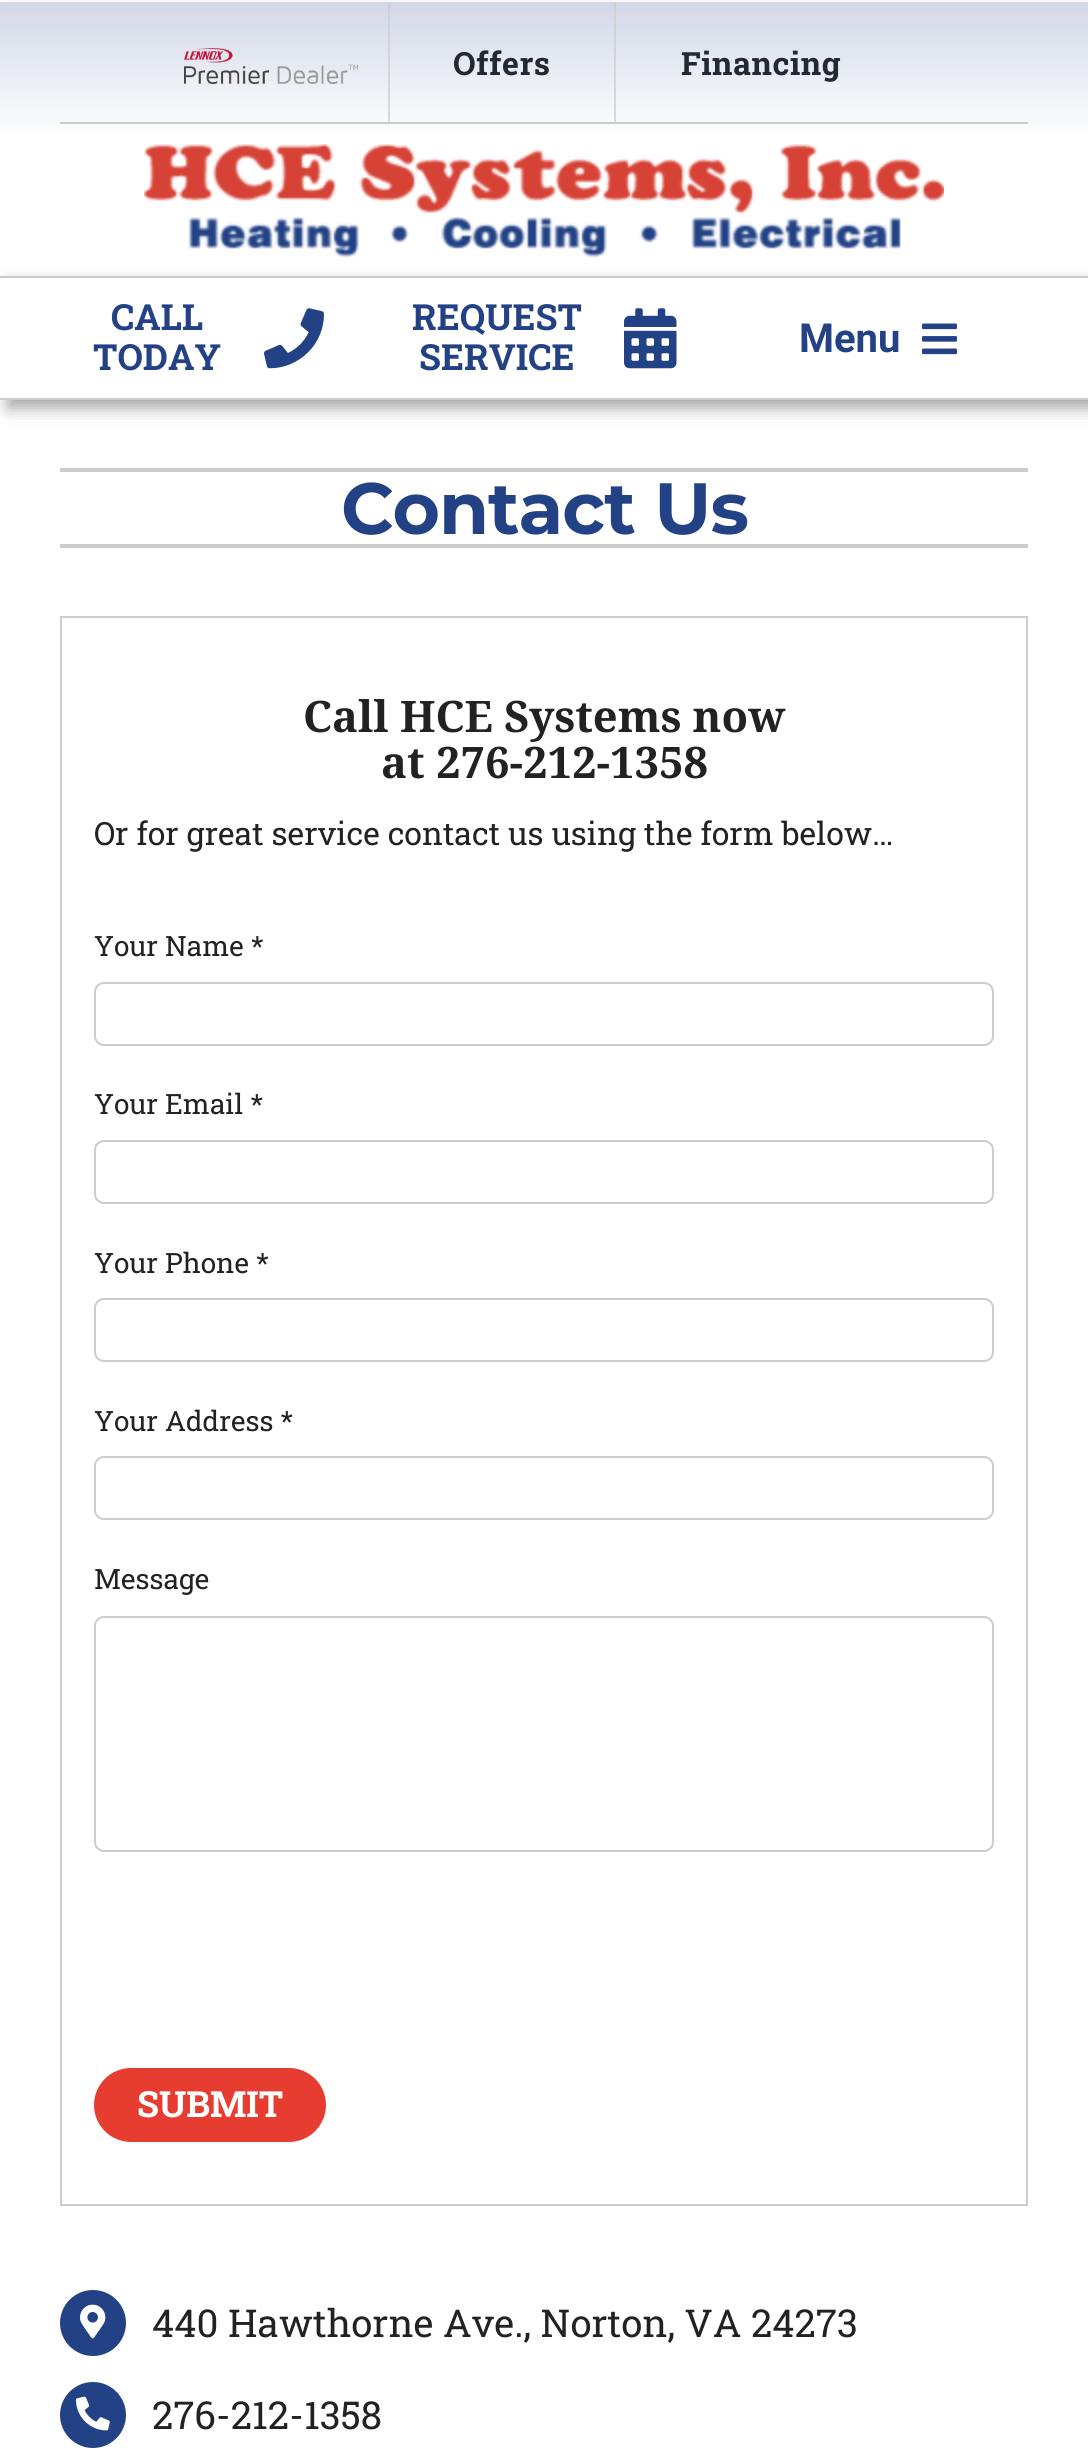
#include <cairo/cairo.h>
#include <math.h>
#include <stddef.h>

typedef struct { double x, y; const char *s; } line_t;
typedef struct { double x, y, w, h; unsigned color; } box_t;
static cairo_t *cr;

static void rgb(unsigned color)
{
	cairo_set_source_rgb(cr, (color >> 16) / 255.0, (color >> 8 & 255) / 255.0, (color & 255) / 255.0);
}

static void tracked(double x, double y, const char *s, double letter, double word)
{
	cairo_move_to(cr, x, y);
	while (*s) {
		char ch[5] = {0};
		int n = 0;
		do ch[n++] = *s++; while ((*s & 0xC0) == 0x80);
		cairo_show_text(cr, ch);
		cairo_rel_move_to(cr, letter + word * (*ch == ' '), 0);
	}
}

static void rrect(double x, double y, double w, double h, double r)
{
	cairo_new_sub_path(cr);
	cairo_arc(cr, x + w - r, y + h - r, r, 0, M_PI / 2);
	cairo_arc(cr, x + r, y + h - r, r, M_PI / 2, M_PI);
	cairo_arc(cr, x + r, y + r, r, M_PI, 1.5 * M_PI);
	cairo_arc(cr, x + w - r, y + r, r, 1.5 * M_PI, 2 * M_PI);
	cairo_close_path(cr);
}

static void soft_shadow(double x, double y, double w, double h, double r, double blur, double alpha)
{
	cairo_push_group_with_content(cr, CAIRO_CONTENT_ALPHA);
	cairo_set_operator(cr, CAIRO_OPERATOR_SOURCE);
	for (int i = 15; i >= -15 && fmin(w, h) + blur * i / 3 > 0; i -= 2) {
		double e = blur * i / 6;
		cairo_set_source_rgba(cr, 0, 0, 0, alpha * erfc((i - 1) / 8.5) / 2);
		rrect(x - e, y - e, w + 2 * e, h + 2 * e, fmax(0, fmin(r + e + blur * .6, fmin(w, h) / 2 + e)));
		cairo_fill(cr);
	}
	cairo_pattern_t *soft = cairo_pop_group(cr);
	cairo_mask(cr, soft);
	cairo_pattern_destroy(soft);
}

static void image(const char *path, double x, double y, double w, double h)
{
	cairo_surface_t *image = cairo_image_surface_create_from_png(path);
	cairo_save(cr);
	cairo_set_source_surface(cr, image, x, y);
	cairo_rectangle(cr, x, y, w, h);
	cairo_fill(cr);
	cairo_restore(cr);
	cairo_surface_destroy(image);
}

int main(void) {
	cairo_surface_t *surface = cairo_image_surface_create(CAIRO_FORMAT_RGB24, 1088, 2452);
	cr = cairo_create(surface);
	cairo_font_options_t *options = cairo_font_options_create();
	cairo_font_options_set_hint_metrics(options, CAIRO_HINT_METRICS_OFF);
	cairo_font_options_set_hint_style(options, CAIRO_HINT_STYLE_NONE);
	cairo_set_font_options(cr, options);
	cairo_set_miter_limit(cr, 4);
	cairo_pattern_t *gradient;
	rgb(0xffffff);
	cairo_paint(cr);
	rgb(0x212121);
	soft_shadow(8, 10, 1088, 276, 0, 8, 0.25);
	gradient = cairo_pattern_create_linear(544, 2, 544, 278);
	cairo_pattern_add_color_stop_rgba(gradient, 0, 0.82, 0.847, 0.902, 1);
	cairo_pattern_add_color_stop_rgba(gradient, 0.5, 1, 1, 1, 1);
	cairo_set_source(cr, gradient);
	cairo_pattern_destroy(gradient);
	cairo_rectangle(cr, 0, 2, 1088, 274);
	cairo_fill(cr);
	gradient = cairo_pattern_create_linear(544, 2, 544, 278);
	cairo_pattern_add_color_stop_rgba(gradient, 0, 0.808, 0.816, 0.831, 1);
	cairo_pattern_add_color_stop_rgba(gradient, 0.5, 0.859, 0.859, 0.859, 1);
	cairo_set_source(cr, gradient);
	cairo_pattern_destroy(gradient);
	cairo_rectangle(cr, 614, 2, 2, 120);
	cairo_fill(cr);
	cairo_rectangle(cr, 388, 2, 2, 120);
	cairo_fill(cr);
	rgb(0xcccccc);
	cairo_rectangle(cr, 60, 122, 968, 2);
	cairo_fill(cr);
	image("img/1.png", 184, 48, 174, 36);
	image("img/2.png", 144, 144, 800, 114);
	rgb(0x212121);
	soft_shadow(8, 284, 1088, 124, 0, 8, 0.4);
	{
		static const box_t items[] = {
			{0, 278, 1088, 120, 0xffffff},
			{0, 276, 1088, 2, 0xcccccc},
			{0, 398, 1088, 2, 0xcccccc},
		};
		for (size_t i = 0; i < sizeof items / sizeof *items; i++) {
			rgb(items[i].color);
			cairo_rectangle(cr, items[i].x, items[i].y, items[i].w, items[i].h);
			cairo_fill(cr);
		}
	}
	image("img/3.png", 264, 308, 60, 61);
	image("img/4.png", 624, 308, 53, 61);
	image("img/5.png", 922, 323, 35, 32);
	cairo_rectangle(cr, 60, 468, 968, 4);
	cairo_fill(cr);
	cairo_rectangle(cr, 60, 544, 968, 4);
	cairo_fill(cr);
	cairo_rectangle(cr, 61, 617, 966, 1588);
	cairo_stroke(cr);
	rrect(95, 983, 898, 62, 9);
	cairo_stroke(cr);
	rrect(95, 1141, 898, 62, 9);
	cairo_stroke(cr);
	rrect(95, 1299, 898, 62, 9);
	cairo_stroke(cr);
	rrect(95, 1457, 898, 62, 9);
	cairo_stroke(cr);
	rrect(95, 1617, 898, 234, 9);
	cairo_stroke(cr);
	rgb(0xe73d30);
	rrect(94, 2068, 232, 74, 37);
	cairo_fill(cr);
	rgb(0x234285);
	cairo_arc(cr, 93, 2323, 33, 0, 2 * M_PI);
	cairo_fill(cr);
	image("img/6.png", 80, 2304, 26, 35);
	cairo_arc(cr, 93, 2415, 33, 0, 2 * M_PI);
	cairo_fill(cr);
	image("img/7.png", 76, 2396, 34, 35);
	cairo_select_font_face(cr, "Roboto Slab", CAIRO_FONT_SLANT_NORMAL, CAIRO_FONT_WEIGHT_BOLD);
	cairo_set_font_size(cr, 32);
	rgb(0x212934);
	tracked(453, 75, "Offers", 0.5, 0);
	tracked(681, 75, "Financing", 0.5, 0);
	cairo_set_font_size(cr, 36);
	rgb(0x234285);
	{
		static const line_t items[] = {
			{111, 330, "CALL"},
			{93, 370, "TODAY"},
			{412, 330, "REQUEST"},
			{419, 370, "SERVICE"},
		};
		for (size_t i = 0; i < sizeof items / sizeof *items; i++) {
			cairo_move_to(cr, items[i].x, items[i].y);
			cairo_show_text(cr, items[i].s);
		}
	}
	cairo_select_font_face(cr, "Roboto", CAIRO_FONT_SLANT_NORMAL, CAIRO_FONT_WEIGHT_BOLD);
	cairo_set_font_size(cr, 40);
	cairo_move_to(cr, 799, 352);
	cairo_show_text(cr, "Menu");
	cairo_select_font_face(cr, "Montserrat Thin", CAIRO_FONT_SLANT_NORMAL, CAIRO_FONT_WEIGHT_NORMAL);
	cairo_set_font_size(cr, 72.5);
	tracked(341, 534, "Contact Us", -1, 0);
	cairo_select_font_face(cr, "Noto Serif", CAIRO_FONT_SLANT_NORMAL, CAIRO_FONT_WEIGHT_BOLD);
	cairo_set_font_size(cr, 43.4);
	rgb(0x222222);
	cairo_move_to(cr, 303, 732);
	cairo_show_text(cr, "Call HCE Systems now");
	cairo_move_to(cr, 381, 778);
	cairo_show_text(cr, "at 276-212-1358");
	cairo_select_font_face(cr, "Roboto Slab", CAIRO_FONT_SLANT_NORMAL, CAIRO_FONT_WEIGHT_NORMAL);
	cairo_set_font_size(cr, 32);
	cairo_move_to(cr, 94, 845);
	cairo_show_text(cr, "Or for great service contact us using the form below…");
	cairo_set_font_size(cr, 28);
	{
		static const line_t items[] = {
			{94, 956, "Your Name *"},
			{94, 1114, "Your Email *"},
			{94, 1273, "Your Phone *"},
			{94, 1431, "Your Address *"},
			{94, 1589, "Message"},
		};
		for (size_t i = 0; i < sizeof items / sizeof *items; i++) {
			cairo_move_to(cr, items[i].x, items[i].y);
			cairo_show_text(cr, items[i].s);
		}
	}
	cairo_select_font_face(cr, "Roboto Slab", CAIRO_FONT_SLANT_NORMAL, CAIRO_FONT_WEIGHT_BOLD);
	cairo_set_font_size(cr, 36);
	rgb(0xffffff);
	cairo_move_to(cr, 137, 2117);
	cairo_show_text(cr, "SUBMIT");
	cairo_select_font_face(cr, "Roboto Slab", CAIRO_FONT_SLANT_NORMAL, CAIRO_FONT_WEIGHT_NORMAL);
	cairo_set_font_size(cr, 38.4);
	rgb(0x222222);
	cairo_move_to(cr, 152, 2337);
	cairo_show_text(cr, "440 Hawthorne Ave., Norton, VA 24273");
	cairo_move_to(cr, 152, 2429);
	cairo_show_text(cr, "276-212-1358");
	cairo_surface_write_to_png(surface, "page.png");
	cairo_font_options_destroy(options);
	cairo_destroy(cr);
	cairo_surface_destroy(surface);
	return 0;
}
